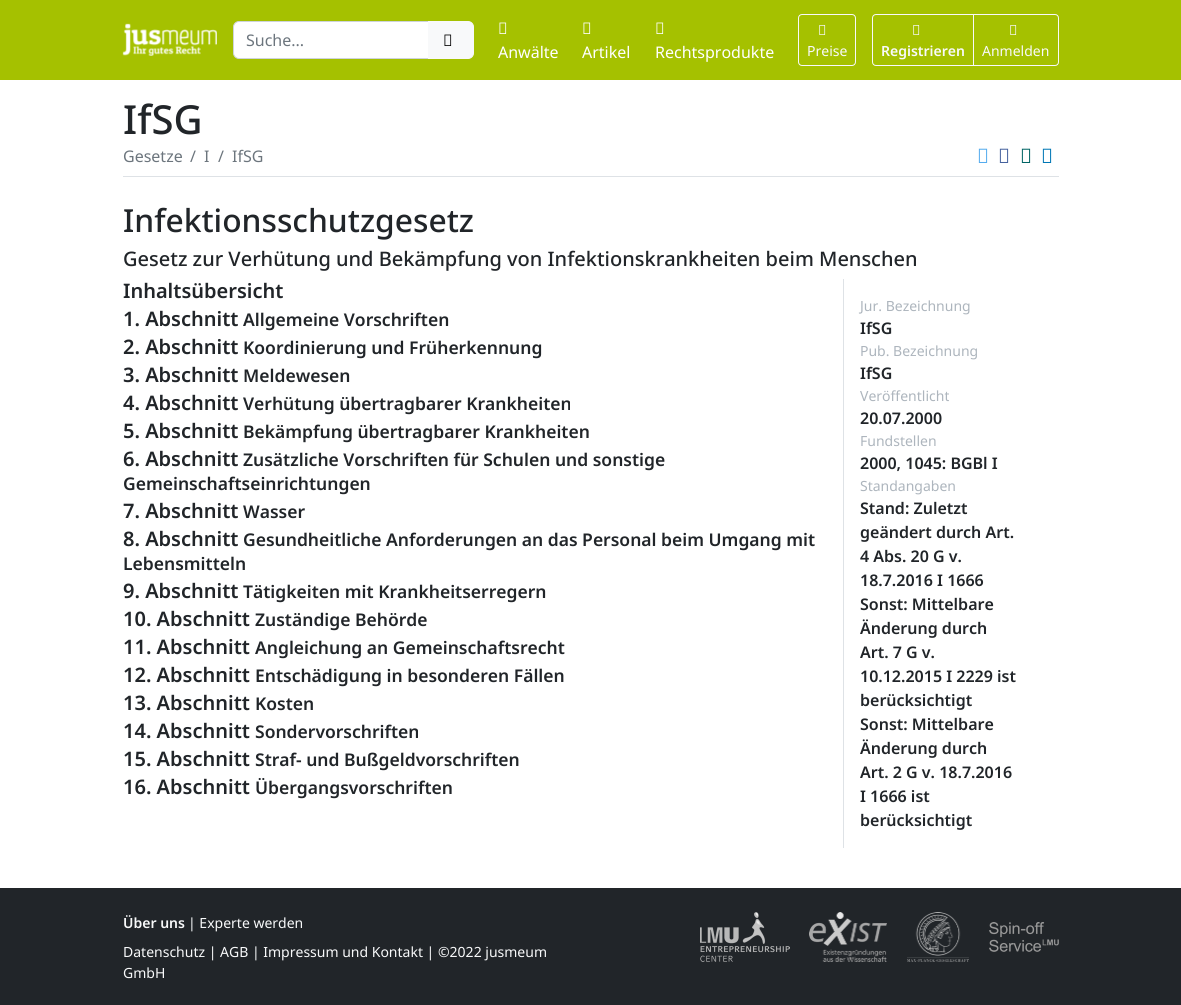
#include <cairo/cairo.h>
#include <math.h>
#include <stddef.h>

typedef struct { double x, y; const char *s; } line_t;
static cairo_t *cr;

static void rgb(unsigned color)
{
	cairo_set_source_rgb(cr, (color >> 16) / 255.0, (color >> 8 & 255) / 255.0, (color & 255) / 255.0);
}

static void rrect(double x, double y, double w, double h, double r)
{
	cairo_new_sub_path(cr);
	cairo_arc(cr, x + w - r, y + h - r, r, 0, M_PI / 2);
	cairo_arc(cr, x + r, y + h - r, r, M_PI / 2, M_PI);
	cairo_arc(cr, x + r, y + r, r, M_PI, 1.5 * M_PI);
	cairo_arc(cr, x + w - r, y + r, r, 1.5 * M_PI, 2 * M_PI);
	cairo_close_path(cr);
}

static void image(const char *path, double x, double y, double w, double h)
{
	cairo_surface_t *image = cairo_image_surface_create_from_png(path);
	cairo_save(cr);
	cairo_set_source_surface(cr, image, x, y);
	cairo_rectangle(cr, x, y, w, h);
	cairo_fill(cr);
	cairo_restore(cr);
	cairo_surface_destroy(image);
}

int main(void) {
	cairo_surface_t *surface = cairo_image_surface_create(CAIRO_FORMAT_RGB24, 1181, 1005);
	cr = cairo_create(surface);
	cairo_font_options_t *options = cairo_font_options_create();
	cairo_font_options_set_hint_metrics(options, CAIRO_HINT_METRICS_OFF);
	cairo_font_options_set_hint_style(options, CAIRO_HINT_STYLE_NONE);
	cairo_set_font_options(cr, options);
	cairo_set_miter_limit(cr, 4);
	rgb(0xffffff);
	cairo_paint(cr);
	rgb(0xa5c100);
	cairo_rectangle(cr, 0, 0, 1181, 80);
	cairo_fill(cr);
	image("img/1.png", 122, 23, 95, 33);
	rgb(0xffffff);
	cairo_new_path(cr);
	cairo_move_to(cr, 239, 21.5);
	cairo_line_to(cr, 428.5, 21.5);
	cairo_line_to(cr, 428.5, 58.5);
	cairo_line_to(cr, 239, 58.5);
	cairo_curve_to(cr, 236, 58.5, 233.5, 56, 233.5, 53);
	cairo_line_to(cr, 233.5, 27);
	cairo_curve_to(cr, 233.5, 24, 236, 21.5, 239, 21.5);
	cairo_close_path(cr);
	cairo_fill_preserve(cr);
	rgb(0xced4da);
	cairo_set_line_width(cr, 1);
	cairo_stroke(cr);
	rgb(0xf8f9fa);
	cairo_new_path(cr);
	cairo_move_to(cr, 428.5, 21.5);
	cairo_line_to(cr, 468, 21.5);
	cairo_curve_to(cr, 471, 21.5, 473.5, 24, 473.5, 27);
	cairo_line_to(cr, 473.5, 53);
	cairo_curve_to(cr, 473.5, 56, 471, 58.5, 468, 58.5);
	cairo_line_to(cr, 428.5, 58.5);
	cairo_close_path(cr);
	cairo_fill_preserve(cr);
	cairo_stroke(cr);
	image("img/2.png", 444, 34, 8, 12);
	image("img/3.png", 499, 22, 8, 12);
	image("img/3.png", 583, 22, 8, 12);
	image("img/3.png", 656, 22, 8, 12);
	rrect(798.5, 14.5, 57, 51, 3.5);
	cairo_stroke(cr);
	image("img/4.png", 819, 25, 7, 10);
	cairo_new_path(cr);
	cairo_move_to(cr, 876, 14.5);
	cairo_line_to(cr, 973.5, 14.5);
	cairo_line_to(cr, 973.5, 65.5);
	cairo_line_to(cr, 876, 65.5);
	cairo_curve_to(cr, 874, 65.5, 872.5, 64, 872.5, 62);
	cairo_line_to(cr, 872.5, 18);
	cairo_curve_to(cr, 872.5, 16, 874, 14.5, 876, 14.5);
	cairo_close_path(cr);
	cairo_stroke(cr);
	image("img/4.png", 913, 25, 7, 10);
	cairo_new_path(cr);
	cairo_move_to(cr, 973.5, 14.5);
	cairo_line_to(cr, 1055, 14.5);
	cairo_curve_to(cr, 1057, 14.5, 1058.5, 16, 1058.5, 18);
	cairo_line_to(cr, 1058.5, 62);
	cairo_curve_to(cr, 1058.5, 64, 1057, 65.5, 1055, 65.5);
	cairo_line_to(cr, 973.5, 65.5);
	cairo_close_path(cr);
	cairo_stroke(cr);
	image("img/4.png", 1010, 25, 7, 10);
	rgb(0xdee2e6);
	cairo_rectangle(cr, 123, 176, 936, 1);
	cairo_fill(cr);
	image("img/5.png", 978, 148, 10, 15);
	image("img/6.png", 999, 148, 10, 15);
	image("img/7.png", 1021, 148, 10, 15);
	image("img/8.png", 1042, 148, 10, 15);
	cairo_rectangle(cr, 843, 279, 1, 569);
	cairo_fill(cr);
	rgb(0x212529);
	cairo_rectangle(cr, 0, 888, 1181, 117);
	cairo_fill(cr);
	image("img/9.png", 700, 912, 90, 50);
	image("img/10.png", 809, 912, 78, 50);
	image("img/11.png", 907, 912, 62, 50);
	image("img/12.png", 989, 922, 70, 30);
	cairo_select_font_face(cr, "Noto Sans", CAIRO_FONT_SLANT_NORMAL, CAIRO_FONT_WEIGHT_NORMAL);
	cairo_set_font_size(cr, 16);
	rgb(0x6c757d);
	cairo_move_to(cr, 246, 46);
	cairo_show_text(cr, "Suche...");
	rgb(0xffffff);
	{
		static const line_t items[] = {
			{498, 58, "Anwälte"},
			{582, 58, "Artikel"},
			{655, 58, "Rechtsprodukte"},
		};
		for (size_t i = 0; i < sizeof items / sizeof *items; i++) {
			cairo_move_to(cr, items[i].x, items[i].y);
			cairo_show_text(cr, items[i].s);
		}
	}
	cairo_set_font_size(cr, 14);
	rgb(0xf8f9fa);
	cairo_move_to(cr, 807, 56);
	cairo_show_text(cr, "Preise");
	cairo_select_font_face(cr, "Noto Sans SemiBold", CAIRO_FONT_SLANT_NORMAL, CAIRO_FONT_WEIGHT_NORMAL);
	cairo_move_to(cr, 881, 56);
	cairo_show_text(cr, "Registrieren");
	cairo_select_font_face(cr, "Noto Sans", CAIRO_FONT_SLANT_NORMAL, CAIRO_FONT_WEIGHT_NORMAL);
	cairo_move_to(cr, 982, 56);
	cairo_show_text(cr, "Anmelden");
	cairo_select_font_face(cr, "Noto Sans Medium", CAIRO_FONT_SLANT_NORMAL, CAIRO_FONT_WEIGHT_NORMAL);
	cairo_set_font_size(cr, 40);
	rgb(0x212529);
	cairo_move_to(cr, 123, 134);
	cairo_show_text(cr, "IfSG");
	cairo_select_font_face(cr, "Noto Sans", CAIRO_FONT_SLANT_NORMAL, CAIRO_FONT_WEIGHT_NORMAL);
	cairo_set_font_size(cr, 16);
	rgb(0x6c757d);
	{
		static const line_t items[] = {
			{123, 162, "Gesetze"},
			{190, 162, "/"},
			{204, 162, "I"},
			{218, 162, "/"},
			{232, 162, "IfSG"},
		};
		for (size_t i = 0; i < sizeof items / sizeof *items; i++) {
			cairo_move_to(cr, items[i].x, items[i].y);
			cairo_show_text(cr, items[i].s);
		}
	}
	cairo_select_font_face(cr, "Noto Sans Medium", CAIRO_FONT_SLANT_NORMAL, CAIRO_FONT_WEIGHT_NORMAL);
	cairo_set_font_size(cr, 31.75);
	rgb(0x212529);
	cairo_move_to(cr, 123, 232);
	cairo_show_text(cr, "Infektionsschutzgesetz");
	cairo_set_font_size(cr, 20);
	cairo_move_to(cr, 123, 266);
	cairo_show_text(cr, "Gesetz zur Verhütung und Bekämpfung von Infektionskrankheiten beim Menschen");
	cairo_select_font_face(cr, "Noto Sans SemiBold", CAIRO_FONT_SLANT_NORMAL, CAIRO_FONT_WEIGHT_NORMAL);
	cairo_move_to(cr, 123, 298);
	cairo_show_text(cr, "Inhaltsübersicht");
	cairo_move_to(cr, 123, 326);
	cairo_show_text(cr, "1. Abschnitt");
	cairo_set_font_size(cr, 17.5);
	cairo_move_to(cr, 243, 326);
	cairo_show_text(cr, "Allgemeine Vorschriften");
	cairo_set_font_size(cr, 20);
	cairo_move_to(cr, 123, 354);
	cairo_show_text(cr, "2. Abschnitt");
	cairo_set_font_size(cr, 17.5);
	cairo_move_to(cr, 243, 354);
	cairo_show_text(cr, "Koordinierung und Früherkennung");
	cairo_set_font_size(cr, 20);
	cairo_move_to(cr, 123, 382);
	cairo_show_text(cr, "3. Abschnitt");
	cairo_set_font_size(cr, 17.5);
	cairo_move_to(cr, 243, 382);
	cairo_show_text(cr, "Meldewesen");
	cairo_set_font_size(cr, 20);
	cairo_move_to(cr, 123, 410);
	cairo_show_text(cr, "4. Abschnitt");
	cairo_set_font_size(cr, 17.5);
	cairo_move_to(cr, 243, 410);
	cairo_show_text(cr, "Verhütung übertragbarer Krankheiten");
	cairo_set_font_size(cr, 20);
	cairo_move_to(cr, 123, 438);
	cairo_show_text(cr, "5. Abschnitt");
	cairo_set_font_size(cr, 17.5);
	cairo_move_to(cr, 243, 438);
	cairo_show_text(cr, "Bekämpfung übertragbarer Krankheiten");
	cairo_set_font_size(cr, 20);
	cairo_move_to(cr, 123, 466);
	cairo_show_text(cr, "6. Abschnitt");
	cairo_set_font_size(cr, 17.5);
	cairo_move_to(cr, 243, 466);
	cairo_show_text(cr, "Zusätzliche Vorschriften für Schulen und sonstige");
	cairo_move_to(cr, 123, 490);
	cairo_show_text(cr, "Gemeinschaftseinrichtungen");
	cairo_set_font_size(cr, 20);
	cairo_move_to(cr, 123, 518);
	cairo_show_text(cr, "7. Abschnitt");
	cairo_set_font_size(cr, 17.5);
	cairo_move_to(cr, 243, 518);
	cairo_show_text(cr, "Wasser");
	cairo_set_font_size(cr, 20);
	cairo_move_to(cr, 123, 546);
	cairo_show_text(cr, "8. Abschnitt");
	cairo_set_font_size(cr, 17.5);
	cairo_move_to(cr, 243, 546);
	cairo_show_text(cr, "Gesundheitliche Anforderungen an das Personal beim Umgang mit");
	cairo_move_to(cr, 123, 570);
	cairo_show_text(cr, "Lebensmitteln");
	cairo_set_font_size(cr, 20);
	cairo_move_to(cr, 123, 598);
	cairo_show_text(cr, "9. Abschnitt");
	cairo_set_font_size(cr, 17.5);
	cairo_move_to(cr, 243, 598);
	cairo_show_text(cr, "Tätigkeiten mit Krankheitserregern");
	cairo_set_font_size(cr, 20);
	cairo_move_to(cr, 123, 626);
	cairo_show_text(cr, "10. Abschnitt");
	cairo_set_font_size(cr, 17.5);
	cairo_move_to(cr, 255, 626);
	cairo_show_text(cr, "Zuständige Behörde");
	cairo_set_font_size(cr, 20);
	cairo_move_to(cr, 123, 654);
	cairo_show_text(cr, "11. Abschnitt");
	cairo_set_font_size(cr, 17.5);
	cairo_move_to(cr, 255, 654);
	cairo_show_text(cr, "Angleichung an Gemeinschaftsrecht");
	cairo_set_font_size(cr, 20);
	cairo_move_to(cr, 123, 682);
	cairo_show_text(cr, "12. Abschnitt");
	cairo_set_font_size(cr, 17.5);
	cairo_move_to(cr, 255, 682);
	cairo_show_text(cr, "Entschädigung in besonderen Fällen");
	cairo_set_font_size(cr, 20);
	cairo_move_to(cr, 123, 710);
	cairo_show_text(cr, "13. Abschnitt");
	cairo_set_font_size(cr, 17.5);
	cairo_move_to(cr, 255, 710);
	cairo_show_text(cr, "Kosten");
	cairo_set_font_size(cr, 20);
	cairo_move_to(cr, 123, 738);
	cairo_show_text(cr, "14. Abschnitt");
	cairo_set_font_size(cr, 17.5);
	cairo_move_to(cr, 255, 738);
	cairo_show_text(cr, "Sondervorschriften");
	cairo_set_font_size(cr, 20);
	cairo_move_to(cr, 123, 766);
	cairo_show_text(cr, "15. Abschnitt");
	cairo_set_font_size(cr, 17.5);
	cairo_move_to(cr, 255, 766);
	cairo_show_text(cr, "Straf- und Bußgeldvorschriften");
	cairo_set_font_size(cr, 20);
	cairo_move_to(cr, 123, 794);
	cairo_show_text(cr, "16. Abschnitt");
	cairo_set_font_size(cr, 17.5);
	cairo_move_to(cr, 255, 794);
	cairo_show_text(cr, "Übergangsvorschriften");
	cairo_select_font_face(cr, "Noto Sans", CAIRO_FONT_SLANT_NORMAL, CAIRO_FONT_WEIGHT_NORMAL);
	cairo_set_font_size(cr, 14);
	rgb(0xadb5bd);
	cairo_move_to(cr, 860, 311);
	cairo_show_text(cr, "Jur. Bezeichnung");
	cairo_select_font_face(cr, "Noto Sans SemiBold", CAIRO_FONT_SLANT_NORMAL, CAIRO_FONT_WEIGHT_NORMAL);
	cairo_set_font_size(cr, 16);
	rgb(0x212529);
	cairo_move_to(cr, 860, 334);
	cairo_show_text(cr, "IfSG");
	cairo_select_font_face(cr, "Noto Sans", CAIRO_FONT_SLANT_NORMAL, CAIRO_FONT_WEIGHT_NORMAL);
	cairo_set_font_size(cr, 14);
	rgb(0xadb5bd);
	cairo_move_to(cr, 860, 356);
	cairo_show_text(cr, "Pub. Bezeichnung");
	cairo_select_font_face(cr, "Noto Sans SemiBold", CAIRO_FONT_SLANT_NORMAL, CAIRO_FONT_WEIGHT_NORMAL);
	cairo_set_font_size(cr, 16);
	rgb(0x212529);
	cairo_move_to(cr, 860, 379);
	cairo_show_text(cr, "IfSG");
	cairo_select_font_face(cr, "Noto Sans", CAIRO_FONT_SLANT_NORMAL, CAIRO_FONT_WEIGHT_NORMAL);
	cairo_set_font_size(cr, 14);
	rgb(0xadb5bd);
	cairo_move_to(cr, 860, 401);
	cairo_show_text(cr, "Veröffentlicht");
	cairo_select_font_face(cr, "Noto Sans SemiBold", CAIRO_FONT_SLANT_NORMAL, CAIRO_FONT_WEIGHT_NORMAL);
	cairo_set_font_size(cr, 16);
	rgb(0x212529);
	cairo_move_to(cr, 860, 424);
	cairo_show_text(cr, "20.07.2000");
	cairo_select_font_face(cr, "Noto Sans", CAIRO_FONT_SLANT_NORMAL, CAIRO_FONT_WEIGHT_NORMAL);
	cairo_set_font_size(cr, 14);
	rgb(0xadb5bd);
	cairo_move_to(cr, 860, 446);
	cairo_show_text(cr, "Fundstellen");
	cairo_select_font_face(cr, "Noto Sans SemiBold", CAIRO_FONT_SLANT_NORMAL, CAIRO_FONT_WEIGHT_NORMAL);
	cairo_set_font_size(cr, 16);
	rgb(0x212529);
	cairo_move_to(cr, 860, 469);
	cairo_show_text(cr, "2000, 1045: BGBl I");
	cairo_select_font_face(cr, "Noto Sans", CAIRO_FONT_SLANT_NORMAL, CAIRO_FONT_WEIGHT_NORMAL);
	cairo_set_font_size(cr, 14);
	rgb(0xadb5bd);
	cairo_move_to(cr, 860, 491);
	cairo_show_text(cr, "Standangaben");
	cairo_select_font_face(cr, "Noto Sans SemiBold", CAIRO_FONT_SLANT_NORMAL, CAIRO_FONT_WEIGHT_NORMAL);
	cairo_set_font_size(cr, 16);
	rgb(0x212529);
	{
		static const line_t items[] = {
			{860, 514, "Stand: Zuletzt"},
			{860, 538, "geändert durch Art."},
			{860, 562, "4 Abs. 20 G v."},
			{860, 586, "18.7.2016 I 1666"},
			{860, 610, "Sonst: Mittelbare"},
			{860, 634, "Änderung durch"},
			{860, 658, "Art. 7 G v."},
			{860, 682, "10.12.2015 I 2229 ist"},
			{860, 706, "berücksichtigt"},
			{860, 730, "Sonst: Mittelbare"},
			{860, 754, "Änderung durch"},
			{860, 778, "Art. 2 G v. 18.7.2016"},
			{860, 802, "I 1666 ist"},
			{860, 826, "berücksichtigt"},
		};
		for (size_t i = 0; i < sizeof items / sizeof *items; i++) {
			cairo_move_to(cr, items[i].x, items[i].y);
			cairo_show_text(cr, items[i].s);
		}
	}
	cairo_set_font_size(cr, 14);
	rgb(0xf8f9fa);
	cairo_move_to(cr, 123, 928);
	cairo_show_text(cr, "Über uns");
	cairo_select_font_face(cr, "Noto Sans", CAIRO_FONT_SLANT_NORMAL, CAIRO_FONT_WEIGHT_NORMAL);
	{
		static const line_t items[] = {
			{188, 928, "| Experte werden"},
			{123, 957, "Datenschutz | AGB | Impressum und Kontakt | ©2022 jusmeum"},
			{123, 978, "GmbH"},
		};
		for (size_t i = 0; i < sizeof items / sizeof *items; i++) {
			cairo_move_to(cr, items[i].x, items[i].y);
			cairo_show_text(cr, items[i].s);
		}
	}
	cairo_surface_write_to_png(surface, "page.png");
	cairo_font_options_destroy(options);
	cairo_destroy(cr);
	cairo_surface_destroy(surface);
	return 0;
}
